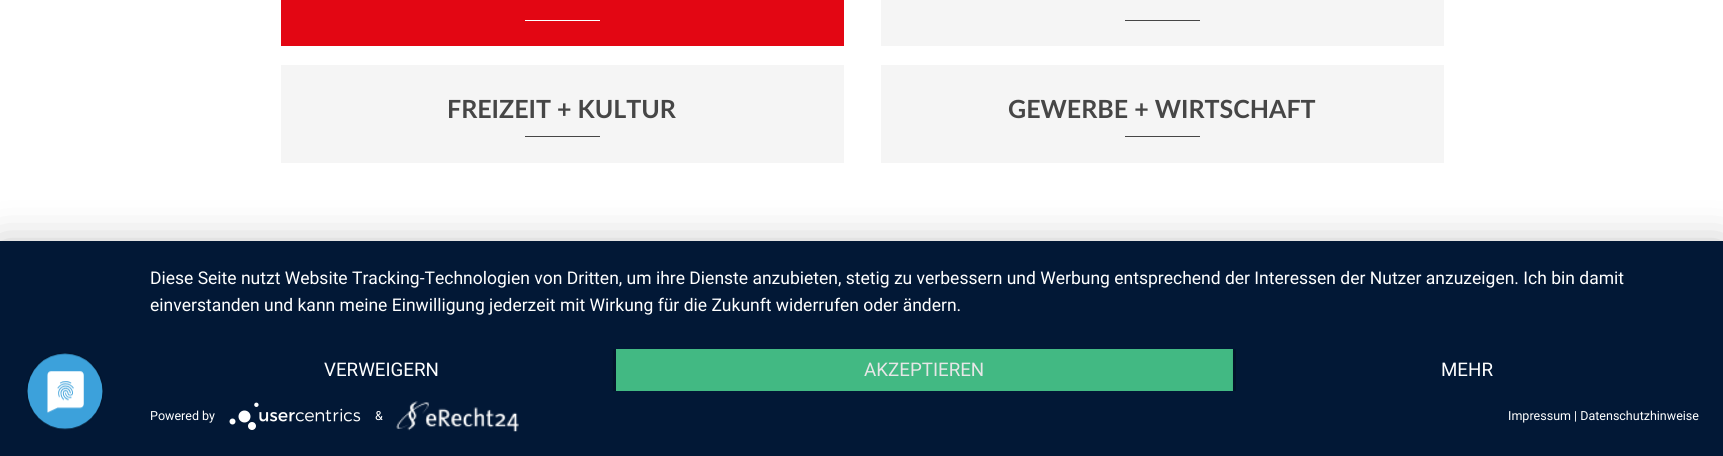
#include <cairo/cairo.h>
#include <math.h>
#include <stddef.h>

typedef struct { double x, y; const char *s; } line_t;
typedef struct { double x, y, w, h; unsigned color; } box_t;
static cairo_t *cr;

static void rgb(unsigned color)
{
	cairo_set_source_rgb(cr, (color >> 16) / 255.0, (color >> 8 & 255) / 255.0, (color & 255) / 255.0);
}

static void rrect(double x, double y, double w, double h, double r)
{
	cairo_new_sub_path(cr);
	cairo_arc(cr, x + w - r, y + h - r, r, 0, M_PI / 2);
	cairo_arc(cr, x + r, y + h - r, r, M_PI / 2, M_PI);
	cairo_arc(cr, x + r, y + r, r, M_PI, 1.5 * M_PI);
	cairo_arc(cr, x + w - r, y + r, r, 1.5 * M_PI, 2 * M_PI);
	cairo_close_path(cr);
}

static void soft_shadow(double x, double y, double w, double h, double r, double blur, double alpha)
{
	cairo_push_group_with_content(cr, CAIRO_CONTENT_ALPHA);
	cairo_set_operator(cr, CAIRO_OPERATOR_SOURCE);
	for (int i = 15; i >= -15 && fmin(w, h) + blur * i / 3 > 0; i -= 2) {
		double e = blur * i / 6;
		cairo_set_source_rgba(cr, 0, 0, 0, alpha * erfc((i - 1) / 8.5) / 2);
		rrect(x - e, y - e, w + 2 * e, h + 2 * e, fmax(0, fmin(r + e + blur * .6, fmin(w, h) / 2 + e)));
		cairo_fill(cr);
	}
	cairo_pattern_t *soft = cairo_pop_group(cr);
	cairo_mask(cr, soft);
	cairo_pattern_destroy(soft);
}

static void image(const char *path, double x, double y, double w, double h)
{
	cairo_surface_t *image = cairo_image_surface_create_from_png(path);
	cairo_save(cr);
	cairo_set_source_surface(cr, image, x, y);
	cairo_rectangle(cr, x, y, w, h);
	cairo_fill(cr);
	cairo_restore(cr);
	cairo_surface_destroy(image);
}

int main(void) {
	cairo_surface_t *surface = cairo_image_surface_create(CAIRO_FORMAT_RGB24, 1723, 456);
	cr = cairo_create(surface);
	cairo_font_options_t *options = cairo_font_options_create();
	cairo_font_options_set_hint_metrics(options, CAIRO_HINT_METRICS_OFF);
	cairo_font_options_set_hint_style(options, CAIRO_HINT_STYLE_NONE);
	cairo_set_font_options(cr, options);
	cairo_set_miter_limit(cr, 4);
	rgb(0xffffff);
	cairo_paint(cr);
	{
		static const box_t items[] = {
			{281, 0, 563, 46, 0xe30613},
			{525, 20, 75, 1, 0xffffff},
			{881, 0, 563, 46, 0xf5f5f5},
			{1125, 20, 75, 1, 0x464646},
			{281, 65, 563, 98, 0xf5f5f5},
			{525, 136, 75, 1, 0x464646},
			{881, 65, 563, 98, 0xf5f5f5},
			{1125, 136, 75, 1, 0x464646},
		};
		for (size_t i = 0; i < sizeof items / sizeof *items; i++) {
			rgb(items[i].color);
			cairo_rectangle(cr, items[i].x, items[i].y, items[i].w, items[i].h);
			cairo_fill(cr);
		}
	}
	rgb(0x000000);
	soft_shadow(0, 249, 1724, 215, 0, 22.5, 0.3);
	rgb(0x021836);
	cairo_rectangle(cr, 0, 241, 1723, 215);
	cairo_fill(cr);
	image("img/1.png", 26, 352, 78, 78);
	image("img/3.png", 396, 401, 123, 31);
	cairo_save(cr);
	cairo_rectangle(cr, 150, 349, 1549, 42);
	cairo_clip(cr);
	rgb(0x000000);
	soft_shadow(150, 350, 463, 43, 0, 2.5, 0.4);
	cairo_restore(cr);
	cairo_rectangle(cr, 150, 349, 463, 42);
	cairo_fill(cr);
	cairo_save(cr);
	cairo_rectangle(cr, 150, 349, 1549, 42);
	cairo_clip(cr);
	rgb(0x000000);
	soft_shadow(616, 350, 617, 43, 0, 2.5, 0.4);
	cairo_restore(cr);
	rgb(0x42b983);
	cairo_rectangle(cr, 616, 349, 617, 42);
	cairo_fill(cr);
	cairo_save(cr);
	cairo_rectangle(cr, 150, 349, 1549, 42);
	cairo_clip(cr);
	rgb(0x000000);
	soft_shadow(1236, 350, 463, 43, 0, 2.5, 0.4);
	cairo_restore(cr);
	rgb(0x021836);
	cairo_rectangle(cr, 1236, 349, 463, 42);
	cairo_fill(cr);
	image("img/2.png", 229, 402, 132, 28);
	cairo_select_font_face(cr, "Lato", CAIRO_FONT_SLANT_NORMAL, CAIRO_FONT_WEIGHT_BOLD);
	cairo_set_font_size(cr, 25);
	rgb(0x464646);
	cairo_move_to(cr, 447, 118);
	cairo_show_text(cr, "FREIZEIT + KULTUR");
	cairo_move_to(cr, 1008, 118);
	cairo_show_text(cr, "GEWERBE + WIRTSCHAFT");
	cairo_select_font_face(cr, "Roboto", CAIRO_FONT_SLANT_NORMAL, CAIRO_FONT_WEIGHT_NORMAL);
	cairo_set_font_size(cr, 17.5);
	rgb(0xffffff);
	cairo_move_to(cr, 150, 284);
	cairo_show_text(cr, "Diese Seite nutzt Website Tracking-Technologien von Dritten, um ihre Dienste anzubieten, stetig zu verbessern und Werbung entsprechend der Interessen der Nutzer anzuzeigen. Ich bin damit");
	cairo_move_to(cr, 150, 311);
	cairo_show_text(cr, "einverstanden und kann meine Einwilligung jederzeit mit Wirkung für die Zukunft widerrufen oder ändern.");
	cairo_set_font_size(cr, 18.75);
	cairo_move_to(cr, 324, 376);
	cairo_show_text(cr, "VERWEIGERN");
	rgb(0xe6e6e6);
	cairo_move_to(cr, 864, 376);
	cairo_show_text(cr, "AKZEPTIEREN");
	rgb(0xffffff);
	cairo_move_to(cr, 1441, 376);
	cairo_show_text(cr, "MEHR");
	cairo_set_font_size(cr, 12.5);
	{
		static const line_t items[] = {
			{150, 420, "Powered by"},
			{375, 420, "&"},
			{1508, 420, "Impressum | Datenschutzhinweise"},
		};
		for (size_t i = 0; i < sizeof items / sizeof *items; i++) {
			cairo_move_to(cr, items[i].x, items[i].y);
			cairo_show_text(cr, items[i].s);
		}
	}
	cairo_surface_write_to_png(surface, "page.png");
	cairo_font_options_destroy(options);
	cairo_destroy(cr);
	cairo_surface_destroy(surface);
	return 0;
}
